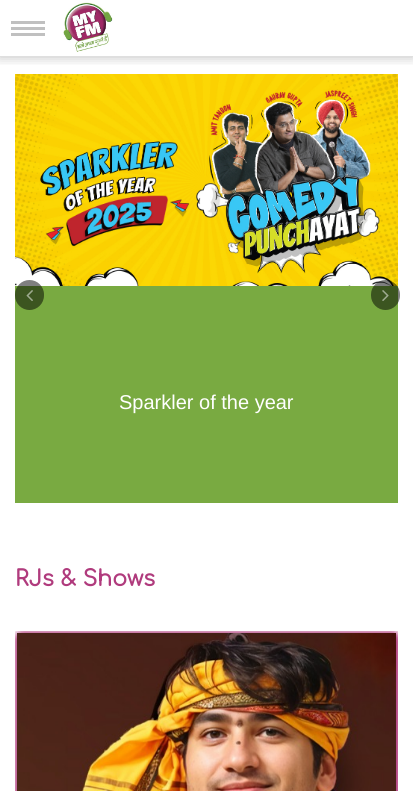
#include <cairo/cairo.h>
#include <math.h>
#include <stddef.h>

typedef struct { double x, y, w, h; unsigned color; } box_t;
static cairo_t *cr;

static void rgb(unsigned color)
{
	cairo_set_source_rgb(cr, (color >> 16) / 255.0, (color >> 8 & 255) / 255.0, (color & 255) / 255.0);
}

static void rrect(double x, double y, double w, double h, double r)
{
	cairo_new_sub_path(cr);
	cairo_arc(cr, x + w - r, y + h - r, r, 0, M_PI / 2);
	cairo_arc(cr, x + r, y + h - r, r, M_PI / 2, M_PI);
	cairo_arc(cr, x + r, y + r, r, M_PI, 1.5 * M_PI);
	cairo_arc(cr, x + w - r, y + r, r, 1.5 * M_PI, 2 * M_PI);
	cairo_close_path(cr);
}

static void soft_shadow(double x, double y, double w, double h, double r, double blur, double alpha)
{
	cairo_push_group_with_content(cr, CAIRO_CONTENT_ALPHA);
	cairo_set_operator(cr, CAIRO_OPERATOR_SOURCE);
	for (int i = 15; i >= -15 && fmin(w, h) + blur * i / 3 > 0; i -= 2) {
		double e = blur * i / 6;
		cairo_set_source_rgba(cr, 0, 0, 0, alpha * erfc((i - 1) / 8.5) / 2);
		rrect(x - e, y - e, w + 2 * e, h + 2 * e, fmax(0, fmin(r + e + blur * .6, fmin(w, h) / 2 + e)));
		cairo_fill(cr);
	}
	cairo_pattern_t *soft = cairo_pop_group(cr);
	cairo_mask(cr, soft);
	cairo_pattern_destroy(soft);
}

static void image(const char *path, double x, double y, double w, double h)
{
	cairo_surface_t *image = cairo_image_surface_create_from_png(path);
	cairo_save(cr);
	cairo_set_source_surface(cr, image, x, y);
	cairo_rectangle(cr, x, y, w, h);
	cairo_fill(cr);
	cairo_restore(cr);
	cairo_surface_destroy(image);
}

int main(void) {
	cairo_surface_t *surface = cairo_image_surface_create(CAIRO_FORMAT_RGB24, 413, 791);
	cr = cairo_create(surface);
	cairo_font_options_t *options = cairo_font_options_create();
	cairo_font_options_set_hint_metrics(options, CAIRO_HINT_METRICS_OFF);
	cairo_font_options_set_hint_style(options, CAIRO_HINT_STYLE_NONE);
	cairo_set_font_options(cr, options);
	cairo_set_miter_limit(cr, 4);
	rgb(0xffffff);
	cairo_paint(cr);
	image("img/4.png", 15, 74, 383, 212);
	cairo_save(cr);
	cairo_rectangle(cr, 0, 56, 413, 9);
	cairo_clip(cr);
	rgb(0x000000);
	soft_shadow(-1, -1, 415, 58, 0, 6, 0.25);
	cairo_restore(cr);
	{
		static const box_t items[] = {
			{11, 27, 34, 3, 0xc0c0c0},
			{11, 21, 34, 3, 0xc0c0c0},
			{11, 33, 34, 3, 0xc0c0c0},
		};
		for (size_t i = 0; i < sizeof items / sizeof *items; i++) {
			rgb(items[i].color);
			cairo_rectangle(cr, items[i].x, items[i].y, items[i].w, items[i].h);
			cairo_fill(cr);
		}
	}
	image("img/1.png", 63, 2, 50, 50);
	rgb(0x79aa41);
	cairo_rectangle(cr, 15, 286, 383, 217);
	cairo_fill(cr);
	cairo_set_source_rgba(cr, 0, 0, 0, 0.5);
	rrect(15, 280, 29, 30, 14.5);
	cairo_fill(cr);
	image("img/2.png", 26, 290, 7, 11);
	rrect(371, 280, 29, 30, 14.5);
	cairo_fill(cr);
	image("img/3.png", 382, 290, 7, 11);
	cairo_save(cr);
	cairo_rectangle(cr, 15, 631, 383, 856);
	cairo_clip(cr);
	rgb(0xb03b7d);
	soft_shadow(14, 631, 387, 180, 9, 3.5, 1);
	cairo_restore(cr);
	image("img/5.png", 17, 633, 379, 158);
	cairo_select_font_face(cr, "Liberation Sans", CAIRO_FONT_SLANT_NORMAL, CAIRO_FONT_WEIGHT_NORMAL);
	cairo_set_font_size(cr, 20);
	rgb(0xffffff);
	cairo_move_to(cr, 119, 409);
	cairo_show_text(cr, "Sparkler of the year");
	cairo_select_font_face(cr, "Comfortaa", CAIRO_FONT_SLANT_NORMAL, CAIRO_FONT_WEIGHT_BOLD);
	cairo_set_font_size(cr, 22);
	rgb(0xb03b7d);
	cairo_move_to(cr, 15, 586);
	cairo_show_text(cr, "RJs & Shows");
	cairo_surface_write_to_png(surface, "page.png");
	cairo_font_options_destroy(options);
	cairo_destroy(cr);
	cairo_surface_destroy(surface);
	return 0;
}
